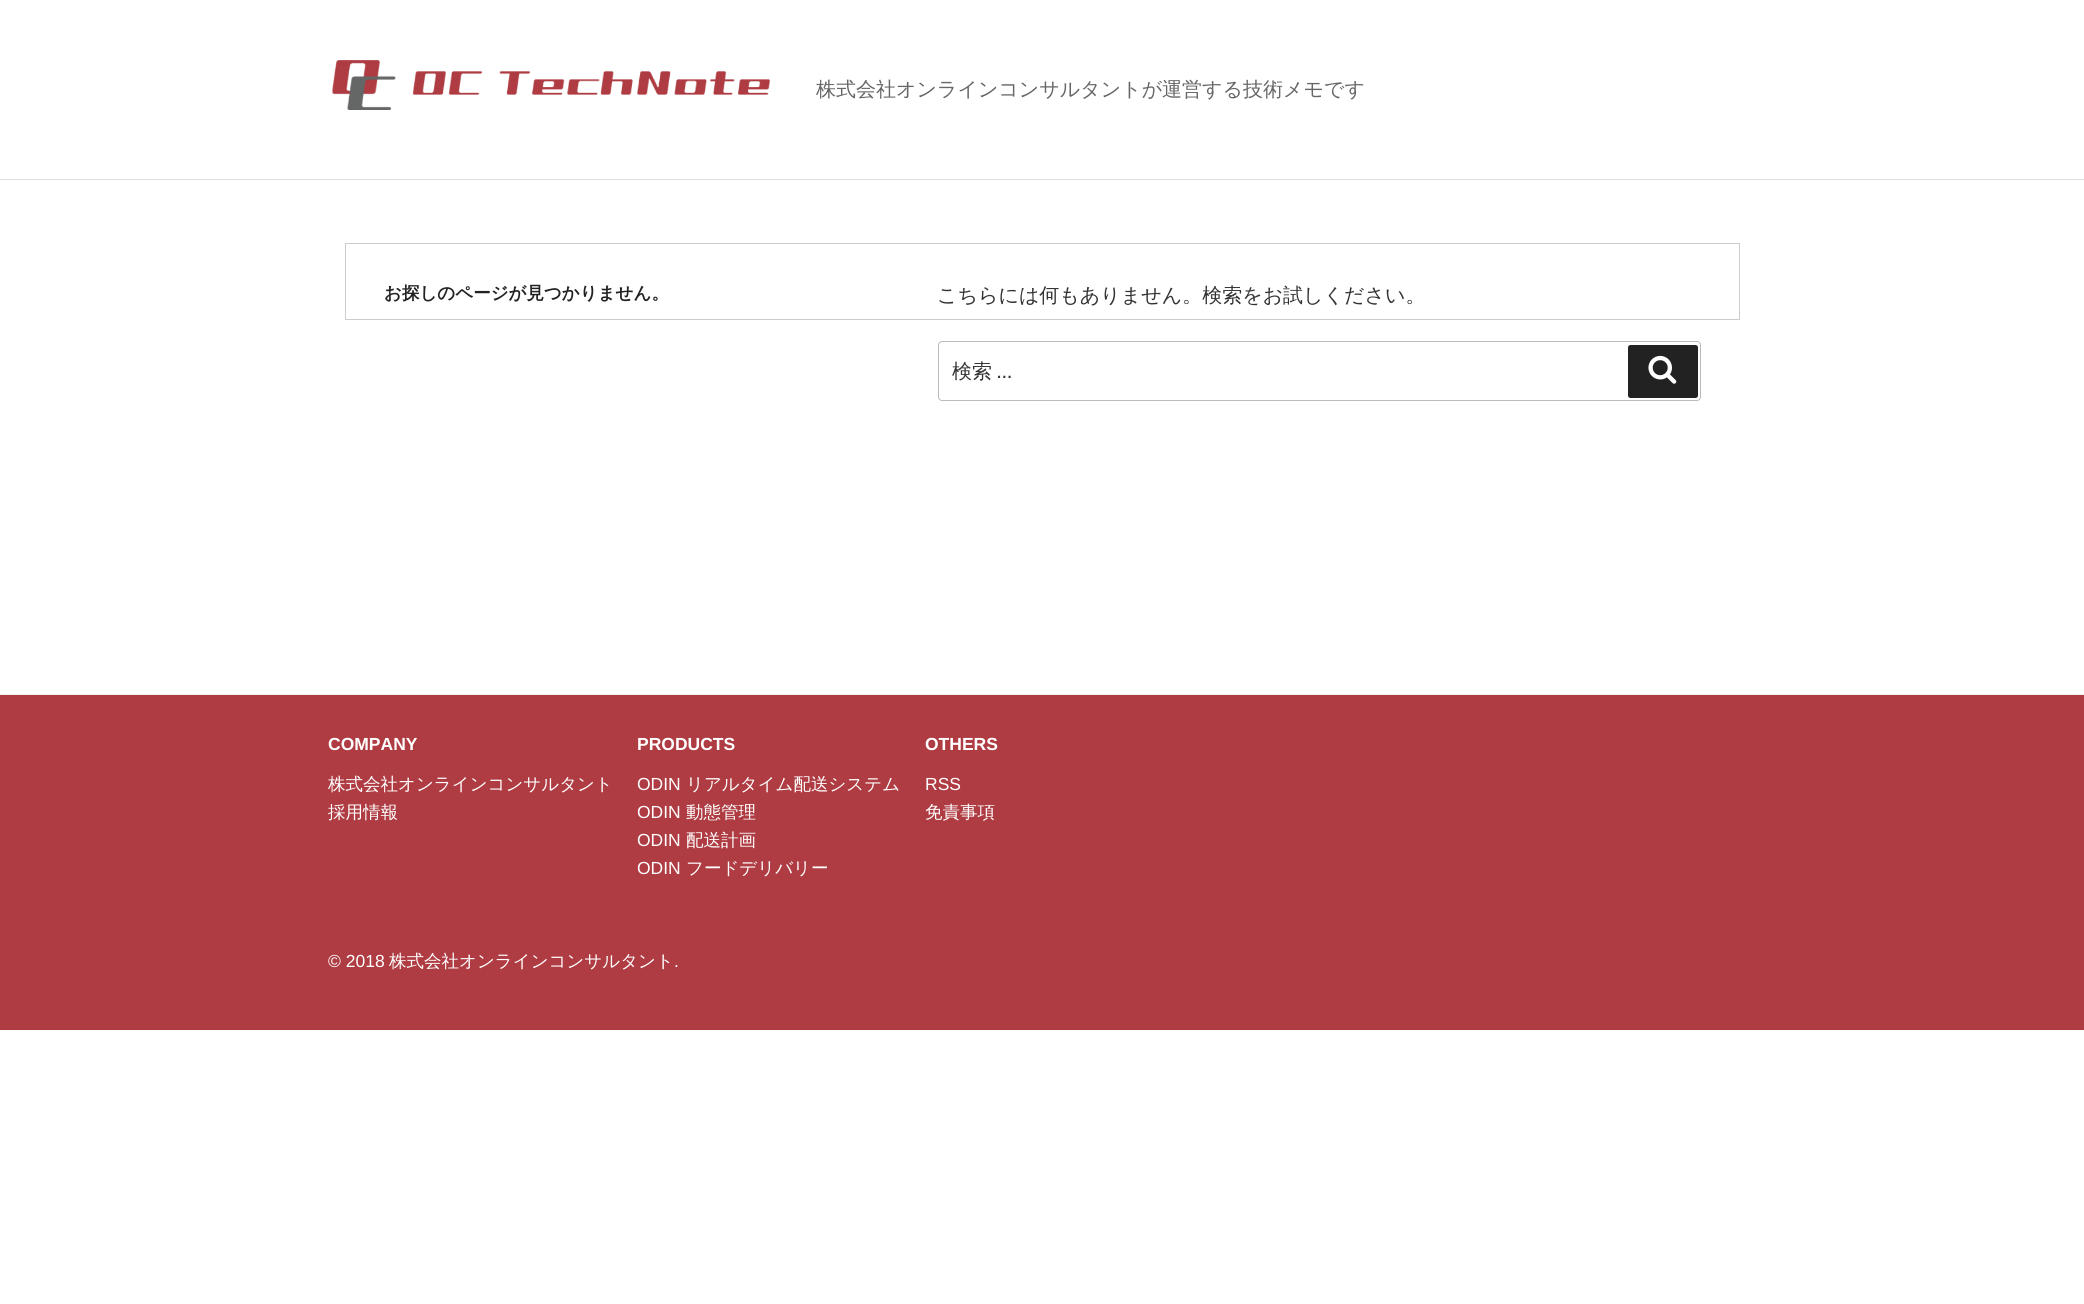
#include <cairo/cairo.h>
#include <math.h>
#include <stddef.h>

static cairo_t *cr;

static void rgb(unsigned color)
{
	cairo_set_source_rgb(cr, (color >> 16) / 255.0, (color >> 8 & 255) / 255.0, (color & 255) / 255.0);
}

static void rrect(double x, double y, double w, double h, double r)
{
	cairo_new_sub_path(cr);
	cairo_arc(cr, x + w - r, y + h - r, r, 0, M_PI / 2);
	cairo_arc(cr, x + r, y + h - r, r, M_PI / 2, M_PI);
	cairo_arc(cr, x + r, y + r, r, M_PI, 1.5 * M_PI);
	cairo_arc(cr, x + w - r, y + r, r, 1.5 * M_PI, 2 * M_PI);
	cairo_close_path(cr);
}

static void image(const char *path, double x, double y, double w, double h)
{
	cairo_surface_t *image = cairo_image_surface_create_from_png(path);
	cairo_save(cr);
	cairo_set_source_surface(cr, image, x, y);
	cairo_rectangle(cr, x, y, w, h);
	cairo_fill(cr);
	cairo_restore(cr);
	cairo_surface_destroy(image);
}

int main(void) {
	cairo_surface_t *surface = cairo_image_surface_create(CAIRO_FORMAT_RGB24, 2084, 1304);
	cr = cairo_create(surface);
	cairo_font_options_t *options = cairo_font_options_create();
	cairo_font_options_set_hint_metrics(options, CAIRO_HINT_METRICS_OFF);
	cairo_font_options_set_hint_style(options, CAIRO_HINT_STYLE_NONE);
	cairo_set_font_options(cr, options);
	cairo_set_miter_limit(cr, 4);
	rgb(0xffffff);
	cairo_paint(cr);
	rgb(0xdddddd);
	cairo_rectangle(cr, 0, 179, 2084, 1);
	cairo_fill(cr);
	image("img/1.png", 332, 60, 438, 50);
	cairo_rectangle(cr, 345.5, 243.5, 1394, 76);
	rgb(0xcccccc);
	cairo_set_line_width(cr, 1);
	cairo_stroke(cr);
	rrect(938.5, 341.5, 762, 59, 3.5);
	rgb(0xbbbbbb);
	cairo_stroke(cr);
	rgb(0x222222);
	rrect(1628, 345, 70, 53, 2.5);
	cairo_fill(cr);
	image("img/2.png", 1648, 355, 29, 29);
	rgb(0xae3c42);
	cairo_rectangle(cr, 0, 695, 2084, 335);
	cairo_fill(cr);
	rgb(0xeeeeee);
	cairo_rectangle(cr, 0, 694, 2084, 1);
	cairo_fill(cr);
	cairo_select_font_face(cr, "WenQuanYi Zen Hei Medium", CAIRO_FONT_SLANT_NORMAL, CAIRO_FONT_WEIGHT_NORMAL);
	cairo_set_font_size(cr, 20);
	rgb(0x666666);
	cairo_move_to(cr, 816, 96);
	cairo_show_text(cr, "株式会社オンラインコンサルタントが運営する技術メモです");
	cairo_select_font_face(cr, "WenQuanYi Zen Hei", CAIRO_FONT_SLANT_NORMAL, CAIRO_FONT_WEIGHT_BOLD);
	cairo_set_font_size(cr, 17.5);
	rgb(0x222222);
	cairo_move_to(cr, 384, 299);
	cairo_show_text(cr, "お探しのページが見つかりません。");
	cairo_select_font_face(cr, "WenQuanYi Zen Hei Medium", CAIRO_FONT_SLANT_NORMAL, CAIRO_FONT_WEIGHT_NORMAL);
	cairo_set_font_size(cr, 20);
	rgb(0x333333);
	cairo_move_to(cr, 937, 302);
	cairo_show_text(cr, "こちらには何もありません。検索をお試しください。");
	cairo_move_to(cr, 952, 378);
	cairo_show_text(cr, "検索");
	cairo_select_font_face(cr, "Libre Franklin", CAIRO_FONT_SLANT_NORMAL, CAIRO_FONT_WEIGHT_NORMAL);
	cairo_move_to(cr, 997, 378);
	cairo_show_text(cr, "…");
	cairo_select_font_face(cr, "Liberation Sans", CAIRO_FONT_SLANT_NORMAL, CAIRO_FONT_WEIGHT_BOLD);
	cairo_set_font_size(cr, 17.5);
	rgb(0xffffff);
	cairo_move_to(cr, 328, 750);
	cairo_show_text(cr, "COMPANY");
	cairo_select_font_face(cr, "WenQuanYi Zen Hei Medium", CAIRO_FONT_SLANT_NORMAL, CAIRO_FONT_WEIGHT_NORMAL);
	cairo_move_to(cr, 328, 790);
	cairo_show_text(cr, "株式会社オンラインコンサルタント");
	cairo_move_to(cr, 328, 818);
	cairo_show_text(cr, "採用情報");
	cairo_select_font_face(cr, "Liberation Sans", CAIRO_FONT_SLANT_NORMAL, CAIRO_FONT_WEIGHT_BOLD);
	cairo_move_to(cr, 637, 750);
	cairo_show_text(cr, "PRODUCTS");
	cairo_select_font_face(cr, "Liberation Sans", CAIRO_FONT_SLANT_NORMAL, CAIRO_FONT_WEIGHT_NORMAL);
	cairo_move_to(cr, 637, 790);
	cairo_show_text(cr, "ODIN");
	cairo_select_font_face(cr, "WenQuanYi Zen Hei Medium", CAIRO_FONT_SLANT_NORMAL, CAIRO_FONT_WEIGHT_NORMAL);
	cairo_move_to(cr, 686, 790);
	cairo_show_text(cr, "リアルタイム配送システム");
	cairo_select_font_face(cr, "Liberation Sans", CAIRO_FONT_SLANT_NORMAL, CAIRO_FONT_WEIGHT_NORMAL);
	cairo_move_to(cr, 637, 818);
	cairo_show_text(cr, "ODIN");
	cairo_select_font_face(cr, "WenQuanYi Zen Hei Medium", CAIRO_FONT_SLANT_NORMAL, CAIRO_FONT_WEIGHT_NORMAL);
	cairo_move_to(cr, 686, 818);
	cairo_show_text(cr, "動態管理");
	cairo_select_font_face(cr, "Liberation Sans", CAIRO_FONT_SLANT_NORMAL, CAIRO_FONT_WEIGHT_NORMAL);
	cairo_move_to(cr, 637, 846);
	cairo_show_text(cr, "ODIN");
	cairo_select_font_face(cr, "WenQuanYi Zen Hei Medium", CAIRO_FONT_SLANT_NORMAL, CAIRO_FONT_WEIGHT_NORMAL);
	cairo_move_to(cr, 686, 846);
	cairo_show_text(cr, "配送計画");
	cairo_select_font_face(cr, "Liberation Sans", CAIRO_FONT_SLANT_NORMAL, CAIRO_FONT_WEIGHT_NORMAL);
	cairo_move_to(cr, 637, 874);
	cairo_show_text(cr, "ODIN");
	cairo_select_font_face(cr, "WenQuanYi Zen Hei Medium", CAIRO_FONT_SLANT_NORMAL, CAIRO_FONT_WEIGHT_NORMAL);
	cairo_move_to(cr, 686, 874);
	cairo_show_text(cr, "フードデリバリー");
	cairo_select_font_face(cr, "Liberation Sans", CAIRO_FONT_SLANT_NORMAL, CAIRO_FONT_WEIGHT_BOLD);
	cairo_move_to(cr, 925, 750);
	cairo_show_text(cr, "OTHERS");
	cairo_select_font_face(cr, "Liberation Sans", CAIRO_FONT_SLANT_NORMAL, CAIRO_FONT_WEIGHT_NORMAL);
	cairo_move_to(cr, 925, 790);
	cairo_show_text(cr, "RSS");
	cairo_select_font_face(cr, "WenQuanYi Zen Hei Medium", CAIRO_FONT_SLANT_NORMAL, CAIRO_FONT_WEIGHT_NORMAL);
	cairo_move_to(cr, 925, 818);
	cairo_show_text(cr, "免責事項");
	cairo_select_font_face(cr, "Liberation Sans", CAIRO_FONT_SLANT_NORMAL, CAIRO_FONT_WEIGHT_NORMAL);
	cairo_move_to(cr, 328, 967);
	cairo_show_text(cr, "© 2018");
	cairo_select_font_face(cr, "WenQuanYi Zen Hei Medium", CAIRO_FONT_SLANT_NORMAL, CAIRO_FONT_WEIGHT_NORMAL);
	cairo_move_to(cr, 389, 967);
	cairo_show_text(cr, "株式会社オンラインコンサルタント");
	cairo_select_font_face(cr, "Liberation Sans", CAIRO_FONT_SLANT_NORMAL, CAIRO_FONT_WEIGHT_NORMAL);
	cairo_move_to(cr, 674, 967);
	cairo_show_text(cr, ".");
	cairo_surface_write_to_png(surface, "page.png");
	cairo_font_options_destroy(options);
	cairo_destroy(cr);
	cairo_surface_destroy(surface);
	return 0;
}
